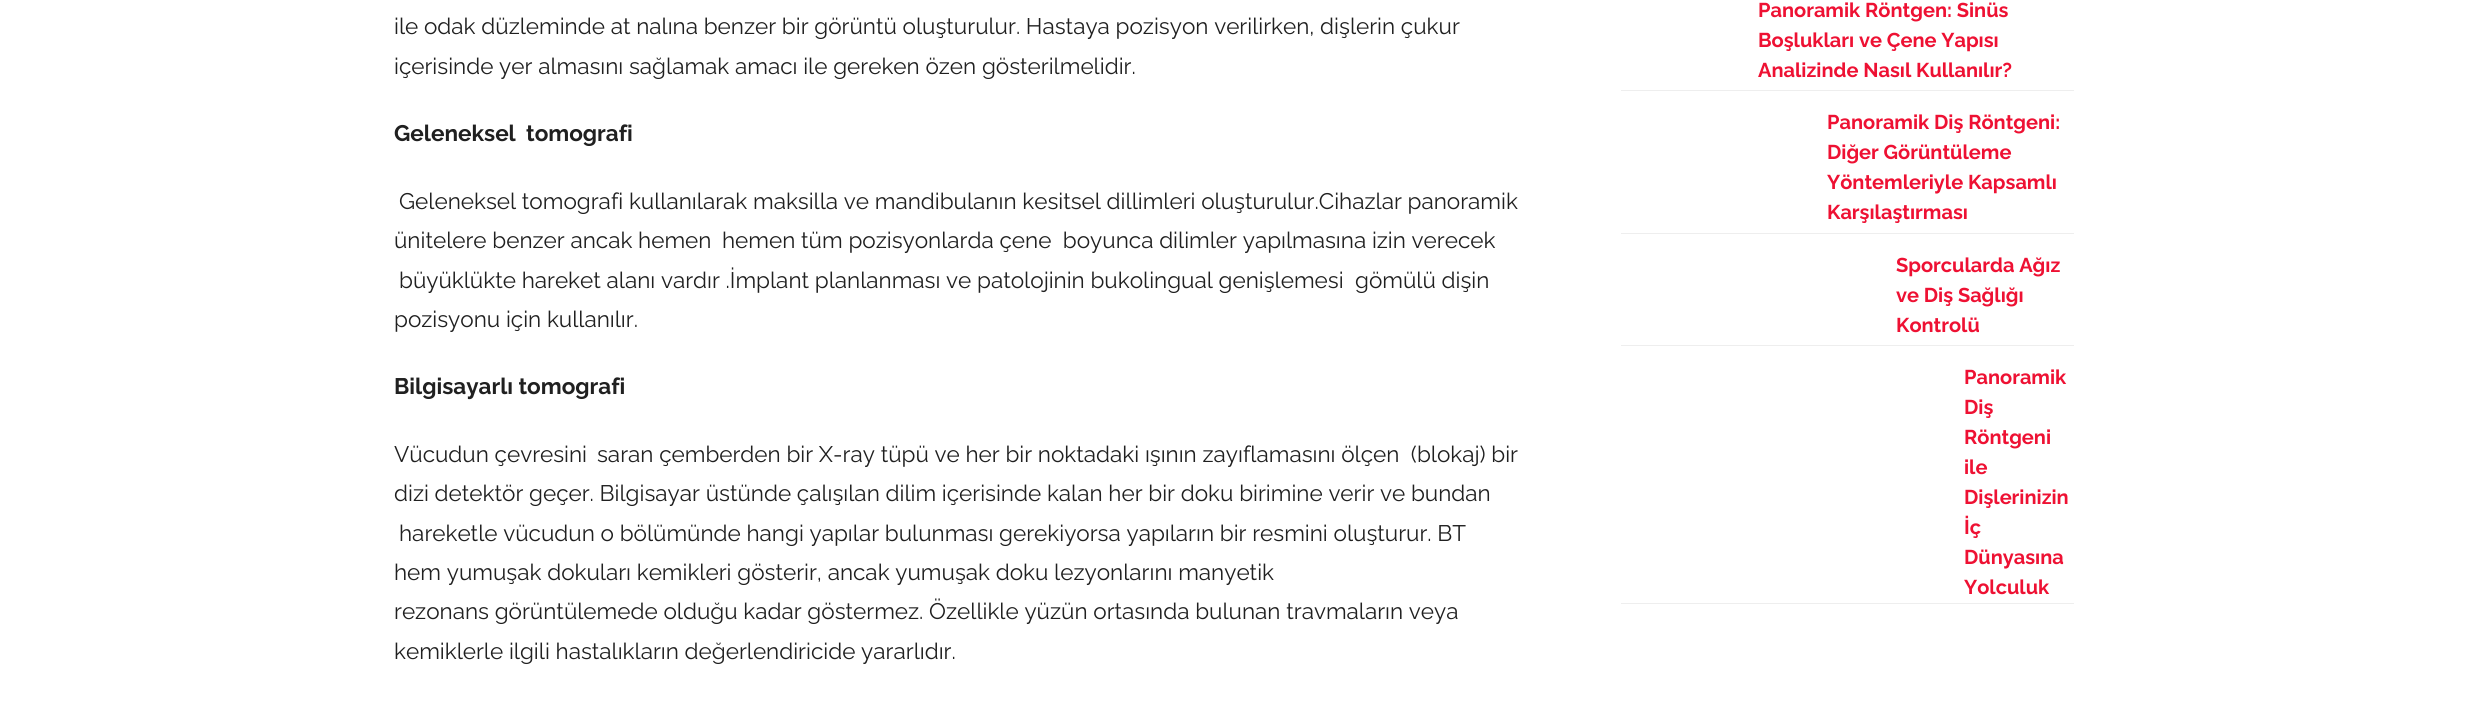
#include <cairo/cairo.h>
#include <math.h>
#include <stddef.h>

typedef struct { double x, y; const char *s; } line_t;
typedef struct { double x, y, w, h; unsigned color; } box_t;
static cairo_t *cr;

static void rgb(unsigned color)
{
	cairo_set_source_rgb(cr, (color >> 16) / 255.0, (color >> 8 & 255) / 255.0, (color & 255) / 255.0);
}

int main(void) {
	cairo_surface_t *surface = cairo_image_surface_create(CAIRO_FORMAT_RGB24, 2467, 722);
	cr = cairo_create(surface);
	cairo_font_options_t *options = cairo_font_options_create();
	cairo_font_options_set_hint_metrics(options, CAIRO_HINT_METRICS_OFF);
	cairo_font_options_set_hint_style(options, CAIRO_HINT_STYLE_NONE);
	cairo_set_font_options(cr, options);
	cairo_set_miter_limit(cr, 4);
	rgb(0xffffff);
	cairo_paint(cr);
	{
		static const box_t items[] = {
			{1621, 90, 453, 1, 0xeeeeee},
			{1621, 233, 453, 1, 0xeeeeee},
			{1621, 345, 453, 1, 0xeeeeee},
			{1621, 603, 453, 1, 0xeeeeee},
		};
		for (size_t i = 0; i < sizeof items / sizeof *items; i++) {
			rgb(items[i].color);
			cairo_rectangle(cr, items[i].x, items[i].y, items[i].w, items[i].h);
			cairo_fill(cr);
		}
	}
	cairo_select_font_face(cr, "Raleway", CAIRO_FONT_SLANT_NORMAL, CAIRO_FONT_WEIGHT_NORMAL);
	cairo_set_font_size(cr, 22.5);
	rgb(0x202020);
	cairo_move_to(cr, 394, 34);
	cairo_show_text(cr, "ile odak düzleminde at nalına benzer bir görüntü oluşturulur. Hastaya pozisyon verilirken, dişlerin çukur");
	cairo_move_to(cr, 394, 74);
	cairo_show_text(cr, "içerisinde yer almasını sağlamak amacı ile gereken özen gösterilmelidir.");
	cairo_select_font_face(cr, "Raleway", CAIRO_FONT_SLANT_NORMAL, CAIRO_FONT_WEIGHT_BOLD);
	cairo_move_to(cr, 394, 141);
	cairo_show_text(cr, "Geleneksel");
	cairo_move_to(cr, 526, 141);
	cairo_show_text(cr, "tomografi");
	cairo_select_font_face(cr, "Raleway", CAIRO_FONT_SLANT_NORMAL, CAIRO_FONT_WEIGHT_NORMAL);
	{
		static const line_t items[] = {
			{399, 209, "Geleneksel tomografi kullanılarak maksilla ve mandibulanın kesitsel dillimleri oluşturulur.Cihazlar panoramik"},
			{394, 248, "ünitelere benzer ancak hemen"},
			{722, 248, "hemen tüm pozisyonlarda çene  boyunca dilimler yapılmasına izin verecek"},
			{399, 288, "büyüklükte hareket alanı vardır .İmplant planlanması ve patolojinin bukolingual genişlemesi  gömülü dişin"},
			{394, 327, "pozisyonu için kullanılır."},
		};
		for (size_t i = 0; i < sizeof items / sizeof *items; i++) {
			cairo_move_to(cr, items[i].x, items[i].y);
			cairo_show_text(cr, items[i].s);
		}
	}
	cairo_select_font_face(cr, "Raleway", CAIRO_FONT_SLANT_NORMAL, CAIRO_FONT_WEIGHT_BOLD);
	cairo_move_to(cr, 394, 394);
	cairo_show_text(cr, "Bilgisayarlı tomografi");
	cairo_select_font_face(cr, "Raleway", CAIRO_FONT_SLANT_NORMAL, CAIRO_FONT_WEIGHT_NORMAL);
	{
		static const line_t items[] = {
			{394, 462, "Vücudun çevresini"},
			{597, 462, "saran çemberden bir X-ray tüpü ve her bir noktadaki ışının zayıflamasını ölçen  (blokaj) bir"},
			{394, 501, "dizi detektör geçer. Bilgisayar üstünde çalışılan dilim içerisinde kalan her bir doku birimine verir ve bundan"},
			{399, 541, "hareketle vücudun o bölümünde hangi yapılar bulunması gerekiyorsa yapıların bir resmini oluşturur. BT"},
			{394, 580, "hem yumuşak dokuları kemikleri gösterir, ancak yumuşak doku lezyonlarını manyetik"},
			{394, 619, "rezonans görüntülemede olduğu kadar göstermez. Özellikle yüzün ortasında bulunan travmaların veya"},
			{394, 659, "kemiklerle ilgili hastalıkların değerlendiricide yararlıdır."},
		};
		for (size_t i = 0; i < sizeof items / sizeof *items; i++) {
			cairo_move_to(cr, items[i].x, items[i].y);
			cairo_show_text(cr, items[i].s);
		}
	}
	cairo_select_font_face(cr, "Raleway", CAIRO_FONT_SLANT_NORMAL, CAIRO_FONT_WEIGHT_BOLD);
	cairo_set_font_size(cr, 20);
	rgb(0xee1133);
	{
		static const line_t items[] = {
			{1758, 17, "Panoramik Röntgen: Sinüs"},
			{1758, 47, "Boşlukları ve Çene Yapısı"},
			{1758, 77, "Analizinde Nasıl Kullanılır?"},
			{1827, 129, "Panoramik Diş Röntgeni:"},
			{1827, 159, "Diğer Görüntüleme"},
			{1827, 189, "Yöntemleriyle Kapsamlı"},
			{1827, 219, "Karşılaştırması"},
			{1896, 272, "Sporcularda Ağız"},
			{1896, 302, "ve Diş Sağlığı"},
			{1896, 332, "Kontrolü"},
			{1964, 384, "Panoramik"},
			{1964, 414, "Diş"},
			{1964, 444, "Röntgeni"},
			{1964, 474, "ile"},
			{1964, 504, "Dişlerinizin"},
			{1964, 534, "İç"},
			{1964, 564, "Dünyasına"},
			{1964, 594, "Yolculuk"},
		};
		for (size_t i = 0; i < sizeof items / sizeof *items; i++) {
			cairo_move_to(cr, items[i].x, items[i].y);
			cairo_show_text(cr, items[i].s);
		}
	}
	cairo_surface_write_to_png(surface, "page.png");
	cairo_font_options_destroy(options);
	cairo_destroy(cr);
	cairo_surface_destroy(surface);
	return 0;
}
